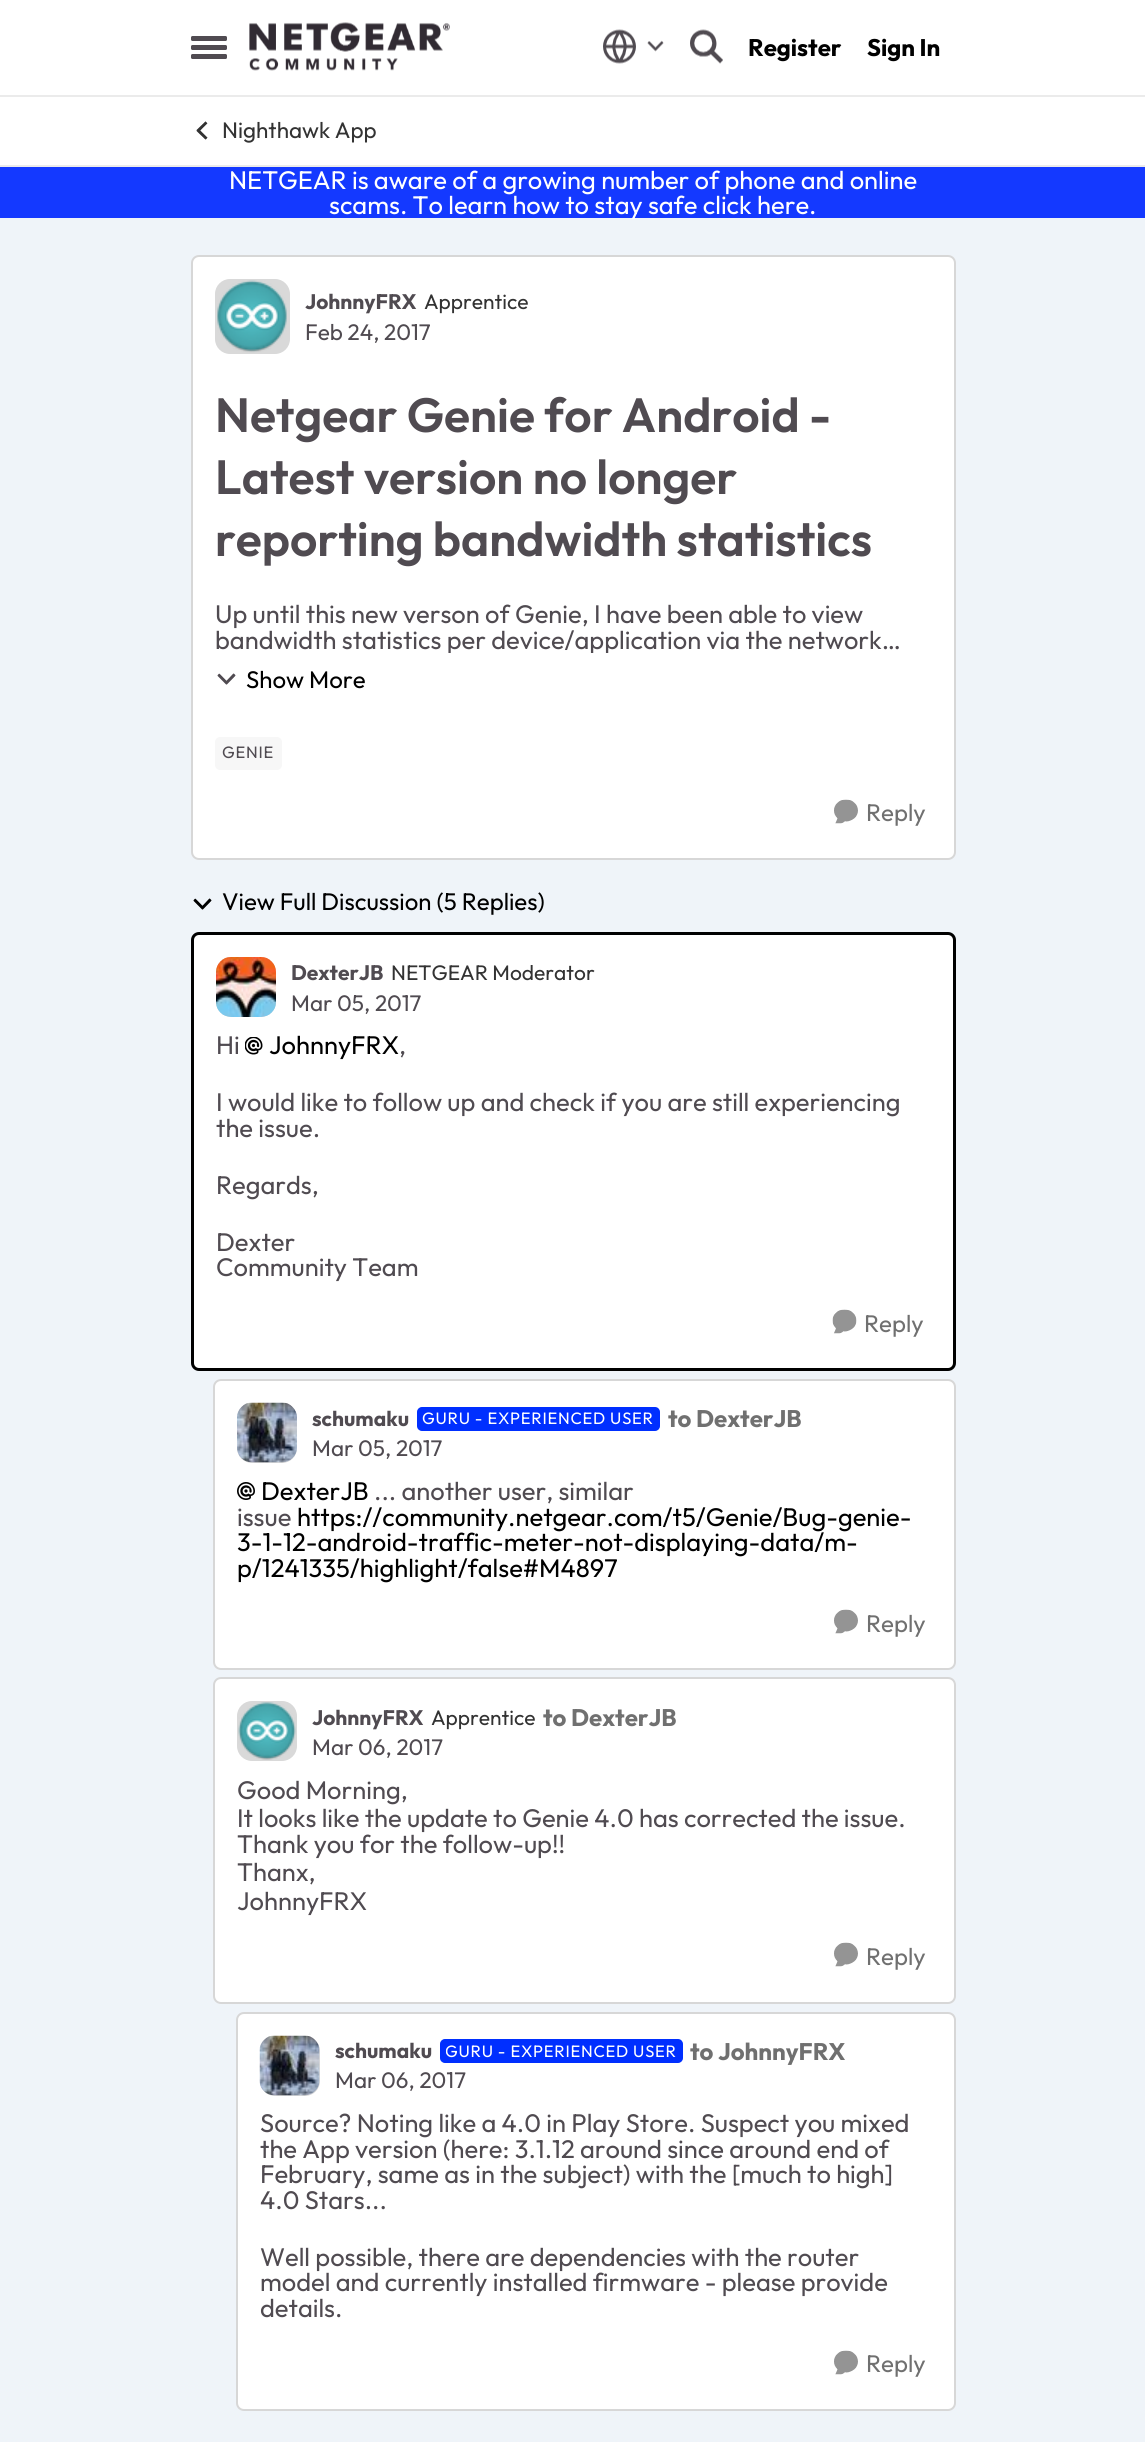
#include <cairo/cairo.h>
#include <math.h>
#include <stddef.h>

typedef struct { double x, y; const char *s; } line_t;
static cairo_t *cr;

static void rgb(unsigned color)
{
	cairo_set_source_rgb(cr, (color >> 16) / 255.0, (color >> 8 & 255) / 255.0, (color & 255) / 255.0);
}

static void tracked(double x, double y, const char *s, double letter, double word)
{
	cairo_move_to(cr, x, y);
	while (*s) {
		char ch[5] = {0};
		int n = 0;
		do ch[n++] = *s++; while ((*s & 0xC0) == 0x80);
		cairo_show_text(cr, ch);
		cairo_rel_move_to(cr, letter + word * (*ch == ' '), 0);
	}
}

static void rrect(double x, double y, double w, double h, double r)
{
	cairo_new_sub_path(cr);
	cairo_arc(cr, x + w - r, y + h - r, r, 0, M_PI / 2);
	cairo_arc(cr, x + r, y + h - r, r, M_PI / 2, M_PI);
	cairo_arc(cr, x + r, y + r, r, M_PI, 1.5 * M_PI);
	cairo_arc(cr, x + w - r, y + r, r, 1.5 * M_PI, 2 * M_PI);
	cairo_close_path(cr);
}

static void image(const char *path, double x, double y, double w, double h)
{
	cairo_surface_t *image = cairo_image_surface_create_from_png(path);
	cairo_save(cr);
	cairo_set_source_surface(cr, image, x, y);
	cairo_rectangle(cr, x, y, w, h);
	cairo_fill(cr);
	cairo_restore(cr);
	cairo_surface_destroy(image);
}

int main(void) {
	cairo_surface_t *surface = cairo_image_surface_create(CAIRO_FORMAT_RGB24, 1145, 2442);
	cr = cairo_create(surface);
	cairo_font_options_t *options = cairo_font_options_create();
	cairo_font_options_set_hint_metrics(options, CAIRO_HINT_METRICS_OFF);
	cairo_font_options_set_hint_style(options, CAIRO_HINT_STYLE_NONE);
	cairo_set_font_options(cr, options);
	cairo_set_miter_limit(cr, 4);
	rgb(0xeff4f9);
	cairo_paint(cr);
	rgb(0xffffff);
	cairo_rectangle(cr, 0, 0, 1145, 165);
	cairo_fill(cr);
	cairo_set_source_rgba(cr, 0, 0, 0, 0.08);
	cairo_rectangle(cr, 0, 95, 1145, 2);
	cairo_fill(cr);
	rgb(0x504b51);
	rrect(191, 36, 36, 5, 1.5);
	cairo_fill(cr);
	rrect(191, 45, 36, 5, 1.5);
	cairo_fill(cr);
	rrect(191, 54, 36, 5, 1.5);
	cairo_fill(cr);
	image("img/1.png", 249, 22, 201, 49);
	image("img/2.png", 603, 29, 33, 35);
	image("img/3.png", 647, 40, 17, 12);
	image("img/4.png", 690, 29, 33, 35);
	rgb(0xebebeb);
	cairo_rectangle(cr, 0, 165, 1145, 2);
	cairo_fill(cr);
	image("img/5.png", 196, 121, 12, 19);
	rgb(0x1439ff);
	cairo_rectangle(cr, 0, 167, 1145, 51);
	cairo_fill(cr);
	rgb(0xffffff);
	rrect(191, 255, 765, 605, 8);
	cairo_fill(cr);
	rrect(192, 256, 763, 603, 7);
	cairo_set_source_rgba(cr, 0, 0, 0, 0.16);
	cairo_stroke(cr);
	rgb(0xd9d9d9);
	rrect(215, 279, 75, 75, 15);
	cairo_fill(cr);
	image("img/6.png", 217, 280, 70, 73);
	image("img/7.png", 217, 673, 19, 12);
	rgb(0xf7f7f7);
	rrect(215, 737, 67, 33, 5);
	cairo_fill(cr);
	image("img/8.png", 834, 799, 24, 25);
	image("img/9.png", 193, 898, 19, 12);
	rgb(0xffffff);
	rrect(192.5, 933.5, 762, 436, 6.5);
	cairo_fill_preserve(cr);
	rgb(0x000000);
	cairo_set_line_width(cr, 3);
	cairo_stroke(cr);
	rgb(0xd9d9d9);
	rrect(216, 957, 60, 60, 15);
	cairo_fill(cr);
	image("img/10.png", 216, 957, 60, 60);
	image("img/11.png", 245, 1037, 18, 18);
	image("img/12.png", 832, 1309, 25, 25);
	rgb(0xffffff);
	rrect(213, 1379, 743, 291, 8);
	cairo_fill(cr);
	rrect(214, 1380, 741, 289, 7);
	cairo_set_source_rgba(cr, 0, 0, 0, 0.16);
	cairo_set_line_width(cr, 2);
	cairo_stroke(cr);
	rgb(0xd9d9d9);
	rrect(237, 1403, 60, 60, 15);
	cairo_fill(cr);
	image("img/13.png", 237, 1402, 60, 61);
	rgb(0x002fff);
	rrect(418, 1408, 241, 22, 4);
	cairo_fill_preserve(cr);
	cairo_stroke(cr);
	image("img/14.png", 237, 1482, 18, 18);
	image("img/8.png", 834, 1609, 24, 25);
	rgb(0xffffff);
	rrect(213, 1677, 743, 327, 8);
	cairo_fill(cr);
	rrect(214, 1678, 741, 325, 7);
	cairo_set_source_rgba(cr, 0, 0, 0, 0.16);
	cairo_stroke(cr);
	rgb(0xd9d9d9);
	rrect(237, 1701, 60, 60, 15);
	cairo_fill(cr);
	image("img/15.png", 238, 1702, 58, 58);
	image("img/8.png", 834, 1942, 24, 25);
	rgb(0xffffff);
	rrect(236, 2012, 720, 399, 8);
	cairo_fill(cr);
	rrect(237, 2013, 718, 397, 7);
	cairo_set_source_rgba(cr, 0, 0, 0, 0.16);
	cairo_stroke(cr);
	rgb(0xd9d9d9);
	rrect(260, 2036, 60, 60, 15);
	cairo_fill(cr);
	image("img/16.png", 259, 2035, 61, 61);
	rgb(0x002fff);
	rrect(441, 2040, 241, 22, 4);
	cairo_fill_preserve(cr);
	cairo_stroke(cr);
	image("img/8.png", 834, 2350, 24, 25);
	cairo_select_font_face(cr, "Outfit", CAIRO_FONT_SLANT_NORMAL, CAIRO_FONT_WEIGHT_BOLD);
	cairo_set_font_size(cr, 24);
	rgb(0x000000);
	cairo_move_to(cr, 748, 56);
	cairo_show_text(cr, "Register");
	cairo_move_to(cr, 867, 56);
	cairo_show_text(cr, "Sign In");
	cairo_select_font_face(cr, "Outfit", CAIRO_FONT_SLANT_NORMAL, CAIRO_FONT_WEIGHT_NORMAL);
	cairo_set_font_size(cr, 22.5);
	rgb(0x333333);
	cairo_move_to(cr, 222, 138);
	cairo_show_text(cr, "Nighthawk App");
	cairo_set_font_size(cr, 25.5);
	rgb(0xffffff);
	cairo_move_to(cr, 229, 189);
	cairo_show_text(cr, "NETGEAR is aware of a growing number of phone and online");
	cairo_move_to(cr, 329, 214);
	cairo_show_text(cr, "scams. To learn how to stay safe click here.");
	cairo_select_font_face(cr, "Outfit", CAIRO_FONT_SLANT_NORMAL, CAIRO_FONT_WEIGHT_BOLD);
	cairo_set_font_size(cr, 21);
	rgb(0x504b51);
	cairo_move_to(cr, 305, 309);
	cairo_show_text(cr, "JohnnyFRX");
	cairo_select_font_face(cr, "Outfit", CAIRO_FONT_SLANT_NORMAL, CAIRO_FONT_WEIGHT_NORMAL);
	rgb(0x333333);
	cairo_move_to(cr, 424, 309);
	cairo_show_text(cr, "Apprentice");
	cairo_set_font_size(cr, 22.5);
	rgb(0x504b51);
	cairo_move_to(cr, 305, 340);
	cairo_show_text(cr, "Feb 24, 2017");
	cairo_select_font_face(cr, "Outfit SemiBold", CAIRO_FONT_SLANT_NORMAL, CAIRO_FONT_WEIGHT_NORMAL);
	cairo_set_font_size(cr, 48);
	{
		static const line_t items[] = {
			{215, 432, "Netgear Genie for Android -"},
			{215, 494, "Latest version no longer"},
			{215, 556, "reporting bandwidth statistics"},
		};
		for (size_t i = 0; i < sizeof items / sizeof *items; i++) {
			cairo_move_to(cr, items[i].x, items[i].y);
			cairo_show_text(cr, items[i].s);
		}
	}
	cairo_select_font_face(cr, "Outfit", CAIRO_FONT_SLANT_NORMAL, CAIRO_FONT_WEIGHT_NORMAL);
	cairo_set_font_size(cr, 25.5);
	cairo_move_to(cr, 215, 623);
	cairo_show_text(cr, "Up until this new verson of Genie, I have been able to view");
	cairo_save(cr);
	cairo_rectangle(cr, 215, 602, 717, 51);
	cairo_clip(cr);
	cairo_move_to(cr, 215, 649);
	cairo_show_text(cr, "bandwidth statistics per device/application via the network…");
	cairo_restore(cr);
	cairo_set_font_size(cr, 24);
	rgb(0x000000);
	cairo_move_to(cr, 246, 688);
	cairo_show_text(cr, "Show More");
	cairo_set_font_size(cr, 16.5);
	rgb(0x504b51);
	tracked(222, 758, "GENIE", 0.75, 0);
	cairo_set_font_size(cr, 24);
	rgb(0x707070);
	cairo_move_to(cr, 866, 821);
	cairo_show_text(cr, "Reply");
	rgb(0x000000);
	cairo_move_to(cr, 222, 910);
	cairo_show_text(cr, "View Full Discussion (5 Replies)");
	cairo_select_font_face(cr, "Outfit", CAIRO_FONT_SLANT_NORMAL, CAIRO_FONT_WEIGHT_BOLD);
	cairo_set_font_size(cr, 21);
	rgb(0x504b51);
	cairo_move_to(cr, 291, 980);
	cairo_show_text(cr, "DexterJB");
	cairo_select_font_face(cr, "Outfit", CAIRO_FONT_SLANT_NORMAL, CAIRO_FONT_WEIGHT_NORMAL);
	rgb(0x333333);
	cairo_move_to(cr, 391, 980);
	cairo_show_text(cr, "NETGEAR Moderator");
	cairo_set_font_size(cr, 22.5);
	rgb(0x504b51);
	cairo_move_to(cr, 291, 1011);
	cairo_show_text(cr, "Mar 05, 2017");
	cairo_set_font_size(cr, 25.5);
	cairo_move_to(cr, 216, 1054);
	cairo_show_text(cr, "Hi");
	rgb(0x000000);
	cairo_move_to(cr, 269, 1054);
	cairo_show_text(cr, "JohnnyFRX");
	rgb(0x504b51);
	{
		static const line_t items[] = {
			{399, 1054, ","},
			{216, 1111, "I would like to follow up and check if you are still experiencing"},
			{216, 1137, "the issue."},
			{216, 1194, "Regards,"},
			{216, 1251, "Dexter"},
			{216, 1276, "Community Team"},
		};
		for (size_t i = 0; i < sizeof items / sizeof *items; i++) {
			cairo_move_to(cr, items[i].x, items[i].y);
			cairo_show_text(cr, items[i].s);
		}
	}
	cairo_set_font_size(cr, 24);
	rgb(0x707070);
	cairo_move_to(cr, 864, 1332);
	cairo_show_text(cr, "Reply");
	cairo_select_font_face(cr, "Outfit", CAIRO_FONT_SLANT_NORMAL, CAIRO_FONT_WEIGHT_BOLD);
	cairo_set_font_size(cr, 21);
	rgb(0x504b51);
	cairo_move_to(cr, 312, 1426);
	cairo_show_text(cr, "schumaku");
	cairo_select_font_face(cr, "Outfit", CAIRO_FONT_SLANT_NORMAL, CAIRO_FONT_WEIGHT_NORMAL);
	cairo_set_font_size(cr, 16.5);
	rgb(0xffffff);
	tracked(422, 1424, "GURU - EXPERIENCED USER", 0.75, 0);
	cairo_select_font_face(cr, "Outfit", CAIRO_FONT_SLANT_NORMAL, CAIRO_FONT_WEIGHT_BOLD);
	cairo_set_font_size(cr, 24);
	rgb(0x707070);
	cairo_move_to(cr, 668, 1427);
	cairo_show_text(cr, "to DexterJB");
	cairo_select_font_face(cr, "Outfit", CAIRO_FONT_SLANT_NORMAL, CAIRO_FONT_WEIGHT_NORMAL);
	cairo_set_font_size(cr, 22.5);
	rgb(0x504b51);
	cairo_move_to(cr, 312, 1456);
	cairo_show_text(cr, "Mar 05, 2017");
	cairo_set_font_size(cr, 25.5);
	rgb(0x000000);
	cairo_move_to(cr, 261, 1500);
	cairo_show_text(cr, "DexterJB");
	rgb(0x504b51);
	cairo_move_to(cr, 374, 1500);
	cairo_show_text(cr, "... another user, similar");
	cairo_move_to(cr, 237, 1526);
	cairo_show_text(cr, "issue");
	rgb(0x000000);
	{
		static const line_t items[] = {
			{297, 1526, "https://community.netgear.com/t5/Genie/Bug-genie-"},
			{237, 1551, "3-1-12-android-traffic-meter-not-displaying-data/m-"},
			{237, 1577, "p/1241335/highlight/false#M4897"},
		};
		for (size_t i = 0; i < sizeof items / sizeof *items; i++) {
			cairo_move_to(cr, items[i].x, items[i].y);
			cairo_show_text(cr, items[i].s);
		}
	}
	cairo_set_font_size(cr, 24);
	rgb(0x707070);
	cairo_move_to(cr, 866, 1632);
	cairo_show_text(cr, "Reply");
	cairo_select_font_face(cr, "Outfit", CAIRO_FONT_SLANT_NORMAL, CAIRO_FONT_WEIGHT_BOLD);
	cairo_set_font_size(cr, 21);
	rgb(0x504b51);
	cairo_move_to(cr, 312, 1725);
	cairo_show_text(cr, "JohnnyFRX");
	cairo_select_font_face(cr, "Outfit", CAIRO_FONT_SLANT_NORMAL, CAIRO_FONT_WEIGHT_NORMAL);
	rgb(0x333333);
	cairo_move_to(cr, 431, 1725);
	cairo_show_text(cr, "Apprentice");
	cairo_select_font_face(cr, "Outfit", CAIRO_FONT_SLANT_NORMAL, CAIRO_FONT_WEIGHT_BOLD);
	cairo_set_font_size(cr, 24);
	rgb(0x707070);
	cairo_move_to(cr, 543, 1726);
	cairo_show_text(cr, "to DexterJB");
	cairo_select_font_face(cr, "Outfit", CAIRO_FONT_SLANT_NORMAL, CAIRO_FONT_WEIGHT_NORMAL);
	cairo_set_font_size(cr, 22.5);
	rgb(0x504b51);
	cairo_move_to(cr, 312, 1755);
	cairo_show_text(cr, "Mar 06, 2017");
	cairo_set_font_size(cr, 25.5);
	{
		static const line_t items[] = {
			{237, 1799, "Good Morning,"},
			{237, 1827, "It looks like the update to Genie 4.0 has corrected the issue."},
			{237, 1853, "Thank you for the follow-up!!"},
			{237, 1881, "Thanx,"},
			{237, 1910, "JohnnyFRX"},
		};
		for (size_t i = 0; i < sizeof items / sizeof *items; i++) {
			cairo_move_to(cr, items[i].x, items[i].y);
			cairo_show_text(cr, items[i].s);
		}
	}
	cairo_set_font_size(cr, 24);
	rgb(0x707070);
	cairo_move_to(cr, 866, 1965);
	cairo_show_text(cr, "Reply");
	cairo_select_font_face(cr, "Outfit", CAIRO_FONT_SLANT_NORMAL, CAIRO_FONT_WEIGHT_BOLD);
	cairo_set_font_size(cr, 21);
	rgb(0x504b51);
	cairo_move_to(cr, 335, 2058);
	cairo_show_text(cr, "schumaku");
	cairo_save(cr);
	cairo_rectangle(cr, 446, 2042, 231, 18);
	cairo_clip(cr);
	cairo_select_font_face(cr, "Outfit", CAIRO_FONT_SLANT_NORMAL, CAIRO_FONT_WEIGHT_NORMAL);
	cairo_set_font_size(cr, 16.5);
	rgb(0xffffff);
	tracked(445, 2057, "GURU - EXPERIENCED USER", 0.75, 0);
	cairo_restore(cr);
	cairo_set_font_size(cr, 24);
	rgb(0x707070);
	cairo_move_to(cr, 690, 2060);
	cairo_show_text(cr, "to JohnnyFRX");
	cairo_select_font_face(cr, "Outfit", CAIRO_FONT_SLANT_NORMAL, CAIRO_FONT_WEIGHT_NORMAL);
	cairo_set_font_size(cr, 22.5);
	rgb(0x504b51);
	cairo_move_to(cr, 335, 2088);
	cairo_show_text(cr, "Mar 06, 2017");
	cairo_set_font_size(cr, 25.5);
	{
		static const line_t items[] = {
			{260, 2132, "Source? Noting like a 4.0 in Play Store. Suspect you mixed"},
			{260, 2158, "the App version (here: 3.1.12 around since around end of"},
			{260, 2183, "February, same as in the subject) with the [much to high]"},
			{260, 2209, "4.0 Stars..."},
			{260, 2266, "Well possible, there are dependencies with the router"},
			{260, 2291, "model and currently installed firmware - please provide"},
			{260, 2317, "details."},
		};
		for (size_t i = 0; i < sizeof items / sizeof *items; i++) {
			cairo_move_to(cr, items[i].x, items[i].y);
			cairo_show_text(cr, items[i].s);
		}
	}
	cairo_set_font_size(cr, 24);
	rgb(0x707070);
	cairo_move_to(cr, 866, 2372);
	cairo_show_text(cr, "Reply");
	cairo_surface_write_to_png(surface, "page.png");
	cairo_font_options_destroy(options);
	cairo_destroy(cr);
	cairo_surface_destroy(surface);
	return 0;
}
